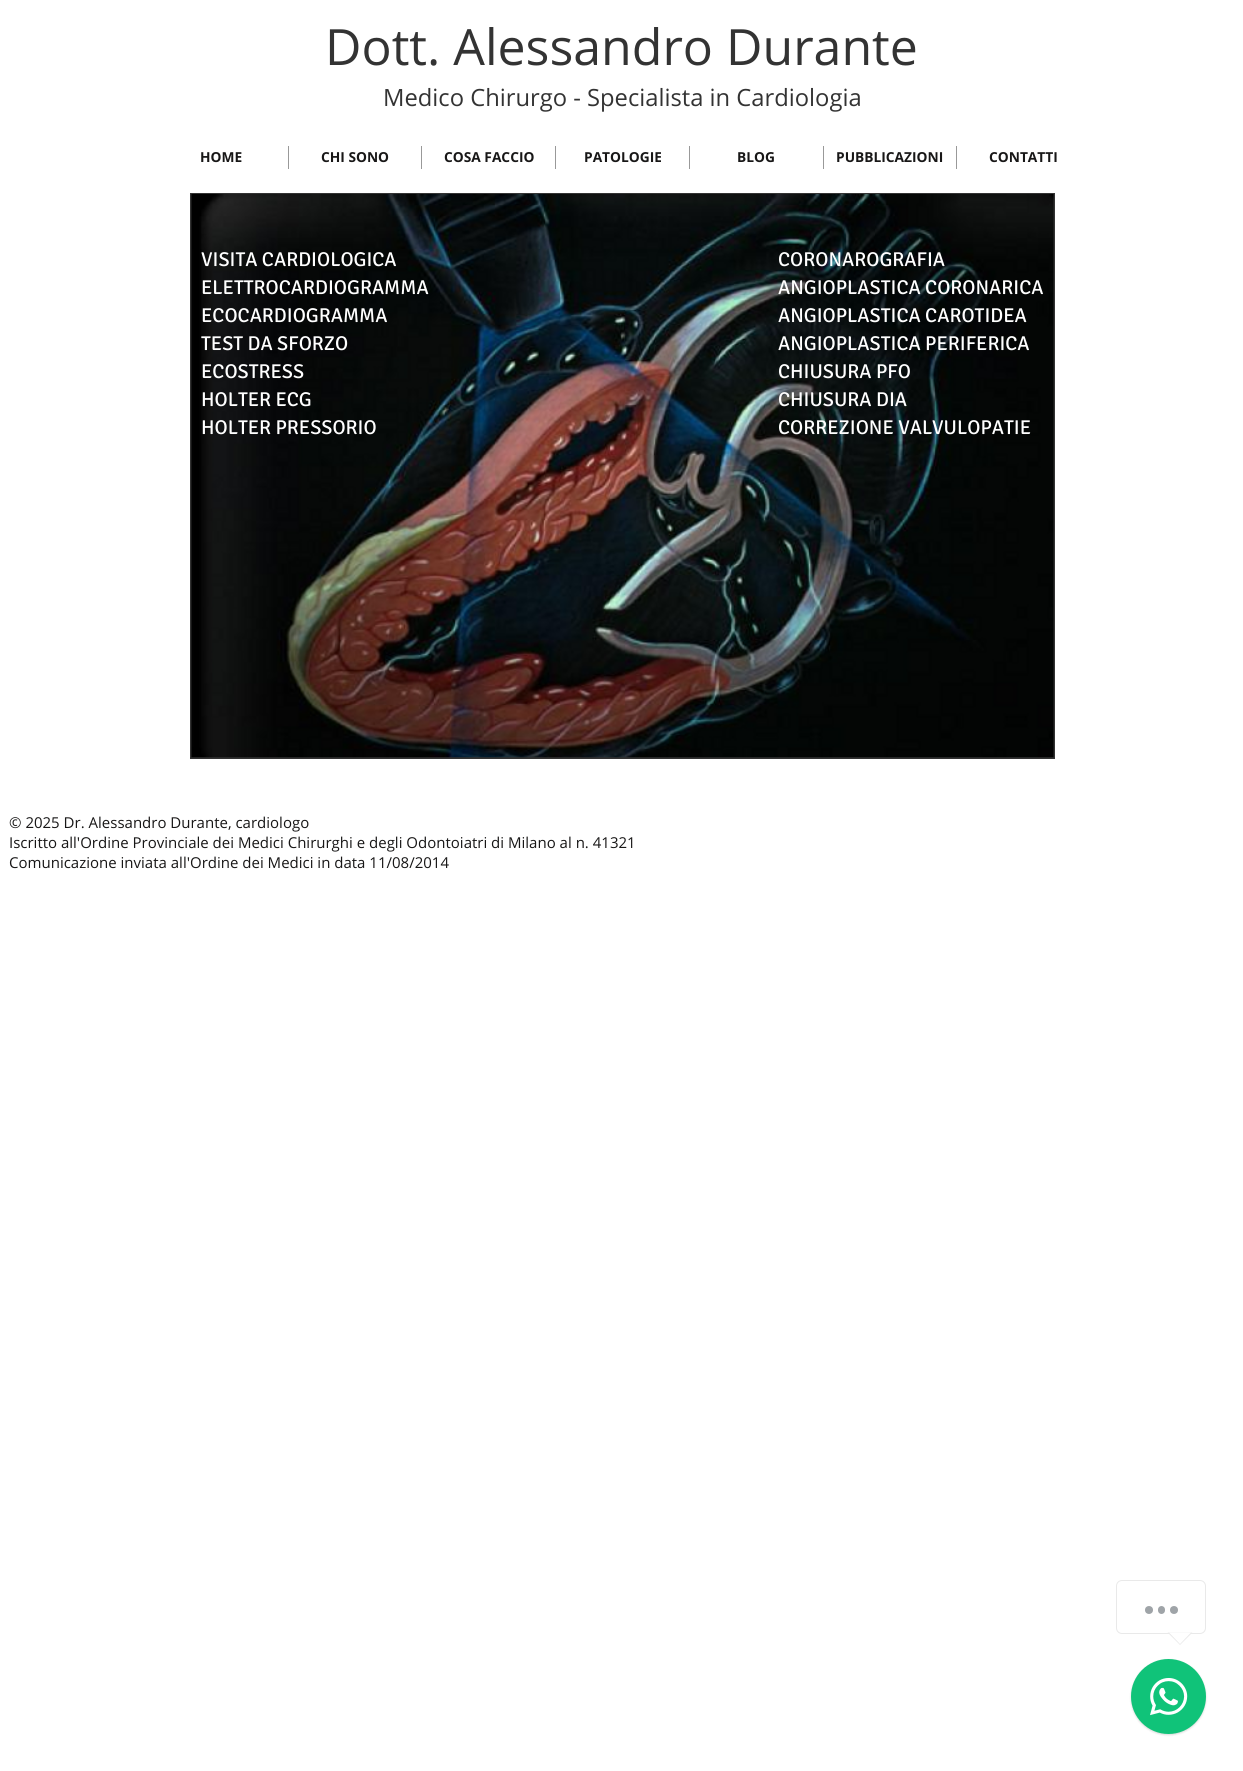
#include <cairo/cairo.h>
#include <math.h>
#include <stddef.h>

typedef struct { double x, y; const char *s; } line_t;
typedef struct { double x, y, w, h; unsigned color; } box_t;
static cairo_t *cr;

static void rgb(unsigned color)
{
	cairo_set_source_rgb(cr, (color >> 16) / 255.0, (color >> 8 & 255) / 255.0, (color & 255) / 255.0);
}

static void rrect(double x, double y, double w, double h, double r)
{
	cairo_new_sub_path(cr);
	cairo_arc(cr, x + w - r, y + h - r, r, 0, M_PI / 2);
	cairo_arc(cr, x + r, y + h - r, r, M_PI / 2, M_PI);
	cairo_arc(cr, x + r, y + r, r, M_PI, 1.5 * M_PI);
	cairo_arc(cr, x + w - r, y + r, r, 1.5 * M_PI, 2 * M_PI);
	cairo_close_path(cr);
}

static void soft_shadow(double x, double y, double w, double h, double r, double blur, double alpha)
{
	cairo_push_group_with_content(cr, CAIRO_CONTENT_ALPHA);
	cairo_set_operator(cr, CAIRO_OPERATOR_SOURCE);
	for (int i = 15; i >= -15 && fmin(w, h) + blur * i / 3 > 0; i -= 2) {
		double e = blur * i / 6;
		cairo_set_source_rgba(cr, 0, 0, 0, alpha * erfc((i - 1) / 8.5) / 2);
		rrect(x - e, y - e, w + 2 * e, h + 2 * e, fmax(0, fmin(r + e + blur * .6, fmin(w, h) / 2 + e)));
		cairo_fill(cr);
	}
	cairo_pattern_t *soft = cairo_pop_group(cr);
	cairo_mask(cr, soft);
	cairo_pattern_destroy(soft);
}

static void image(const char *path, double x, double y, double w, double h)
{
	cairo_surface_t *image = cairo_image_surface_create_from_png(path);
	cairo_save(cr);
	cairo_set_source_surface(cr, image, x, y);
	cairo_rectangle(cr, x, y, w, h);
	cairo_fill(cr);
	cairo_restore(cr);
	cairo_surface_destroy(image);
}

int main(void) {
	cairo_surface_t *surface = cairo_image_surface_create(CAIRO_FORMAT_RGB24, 1243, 1771);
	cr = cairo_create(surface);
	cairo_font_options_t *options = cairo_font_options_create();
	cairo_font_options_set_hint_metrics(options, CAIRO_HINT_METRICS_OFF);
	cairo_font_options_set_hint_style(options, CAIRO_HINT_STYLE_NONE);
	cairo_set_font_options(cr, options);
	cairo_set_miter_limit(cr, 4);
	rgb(0xffffff);
	cairo_paint(cr);
	{
		static const box_t items[] = {
			{288, 146, 1, 23, 0x999999},
			{421, 146, 1, 23, 0x999999},
			{555, 146, 1, 23, 0x999999},
			{689, 146, 1, 23, 0x999999},
			{823, 146, 1, 23, 0x999999},
			{956, 146, 1, 23, 0x999999},
			{190, 193, 865, 566, 0x333333},
		};
		for (size_t i = 0; i < sizeof items / sizeof *items; i++) {
			rgb(items[i].color);
			cairo_rectangle(cr, items[i].x, items[i].y, items[i].w, items[i].h);
			cairo_fill(cr);
		}
	}
	image("img/1.png", 191, 194, 863, 564);
	rrect(1116.5, 1580.5, 89, 53, 5.5);
	rgb(0xe9e9e9);
	cairo_set_line_width(cr, 1);
	cairo_stroke(cr);
	rgb(0x9fa4a8);
	cairo_arc(cr, 1149, 1610, 4, 0, 2 * M_PI);
	cairo_fill(cr);
	rrect(1158, 1606, 7, 8, 3.5);
	cairo_fill(cr);
	cairo_arc(cr, 1174, 1610, 4, 0, 2 * M_PI);
	cairo_fill(cr);
	rgb(0xe9e9e9);
	cairo_new_path(cr);
	cairo_move_to(cr, 1167.5, 1632.5);
	cairo_line_to(cr, 1192.5, 1632.5);
	cairo_line_to(cr, 1180, 1645);
	cairo_close_path(cr);
	cairo_fill(cr);
	rgb(0xffffff);
	cairo_new_path(cr);
	cairo_move_to(cr, 1169, 1632.5);
	cairo_line_to(cr, 1191, 1632.5);
	cairo_line_to(cr, 1180, 1644);
	cairo_close_path(cr);
	cairo_fill(cr);
	rgb(0x000000);
	soft_shadow(1131, 1660, 75, 75, 37.5, 1, 0.15);
	rgb(0x10c379);
	cairo_arc(cr, 1168.5, 1696.5, 37.5, 0, 2 * M_PI);
	cairo_fill(cr);
	image("img/2.png", 1150, 1678, 38, 38);
	cairo_select_font_face(cr, "Open Sans", CAIRO_FONT_SLANT_NORMAL, CAIRO_FONT_WEIGHT_NORMAL);
	cairo_set_font_size(cr, 50);
	rgb(0x333333);
	cairo_move_to(cr, 325, 65);
	cairo_show_text(cr, "Dott. Alessandro Durante");
	cairo_set_font_size(cr, 23.75);
	cairo_move_to(cr, 383, 106);
	cairo_show_text(cr, "Medico Chirurgo - Specialista in Cardiologia");
	cairo_select_font_face(cr, "Open Sans", CAIRO_FONT_SLANT_NORMAL, CAIRO_FONT_WEIGHT_BOLD);
	cairo_set_font_size(cr, 13.75);
	rgb(0x181717);
	{
		static const line_t items[] = {
			{200, 162, "HOME"},
			{321, 162, "CHI SONO"},
			{444, 162, "COSA FACCIO"},
			{584, 162, "PATOLOGIE"},
			{737, 162, "BLOG"},
			{836, 162, "PUBBLICAZIONI"},
			{989, 162, "CONTATTI"},
		};
		for (size_t i = 0; i < sizeof items / sizeof *items; i++) {
			cairo_move_to(cr, items[i].x, items[i].y);
			cairo_show_text(cr, items[i].s);
		}
	}
	cairo_select_font_face(cr, "Signika", CAIRO_FONT_SLANT_NORMAL, CAIRO_FONT_WEIGHT_NORMAL);
	cairo_set_font_size(cr, 20);
	rgb(0xffffff);
	{
		static const line_t items[] = {
			{201, 266, "VISITA CARDIOLOGICA"},
			{201, 294, "ELETTROCARDIOGRAMMA"},
			{201, 322, "ECOCARDIOGRAMMA"},
			{201, 350, "TEST DA SFORZO"},
			{201, 378, "ECOSTRESS"},
			{201, 406, "HOLTER ECG"},
			{201, 434, "HOLTER PRESSORIO"},
			{778, 266, "CORONAROGRAFIA"},
			{778, 294, "ANGIOPLASTICA CORONARICA"},
			{778, 322, "ANGIOPLASTICA CAROTIDEA"},
			{778, 350, "ANGIOPLASTICA PERIFERICA"},
			{778, 378, "CHIUSURA PFO"},
			{778, 406, "CHIUSURA DIA"},
			{778, 434, "CORREZIONE VALVULOPATIE"},
		};
		for (size_t i = 0; i < sizeof items / sizeof *items; i++) {
			cairo_move_to(cr, items[i].x, items[i].y);
			cairo_show_text(cr, items[i].s);
		}
	}
	cairo_select_font_face(cr, "Open Sans", CAIRO_FONT_SLANT_NORMAL, CAIRO_FONT_WEIGHT_NORMAL);
	cairo_set_font_size(cr, 15);
	rgb(0x181717);
	{
		static const line_t items[] = {
			{9, 828, "© 2025 Dr. Alessandro Durante, cardiologo"},
			{9, 848, "Iscritto all'Ordine Provinciale dei Medici Chirurghi e degli Odontoiatri di Milano al n. 41321"},
			{9, 868, "Comunicazione inviata all'Ordine dei Medici in data 11/08/2014"},
		};
		for (size_t i = 0; i < sizeof items / sizeof *items; i++) {
			cairo_move_to(cr, items[i].x, items[i].y);
			cairo_show_text(cr, items[i].s);
		}
	}
	cairo_surface_write_to_png(surface, "page.png");
	cairo_font_options_destroy(options);
	cairo_destroy(cr);
	cairo_surface_destroy(surface);
	return 0;
}
